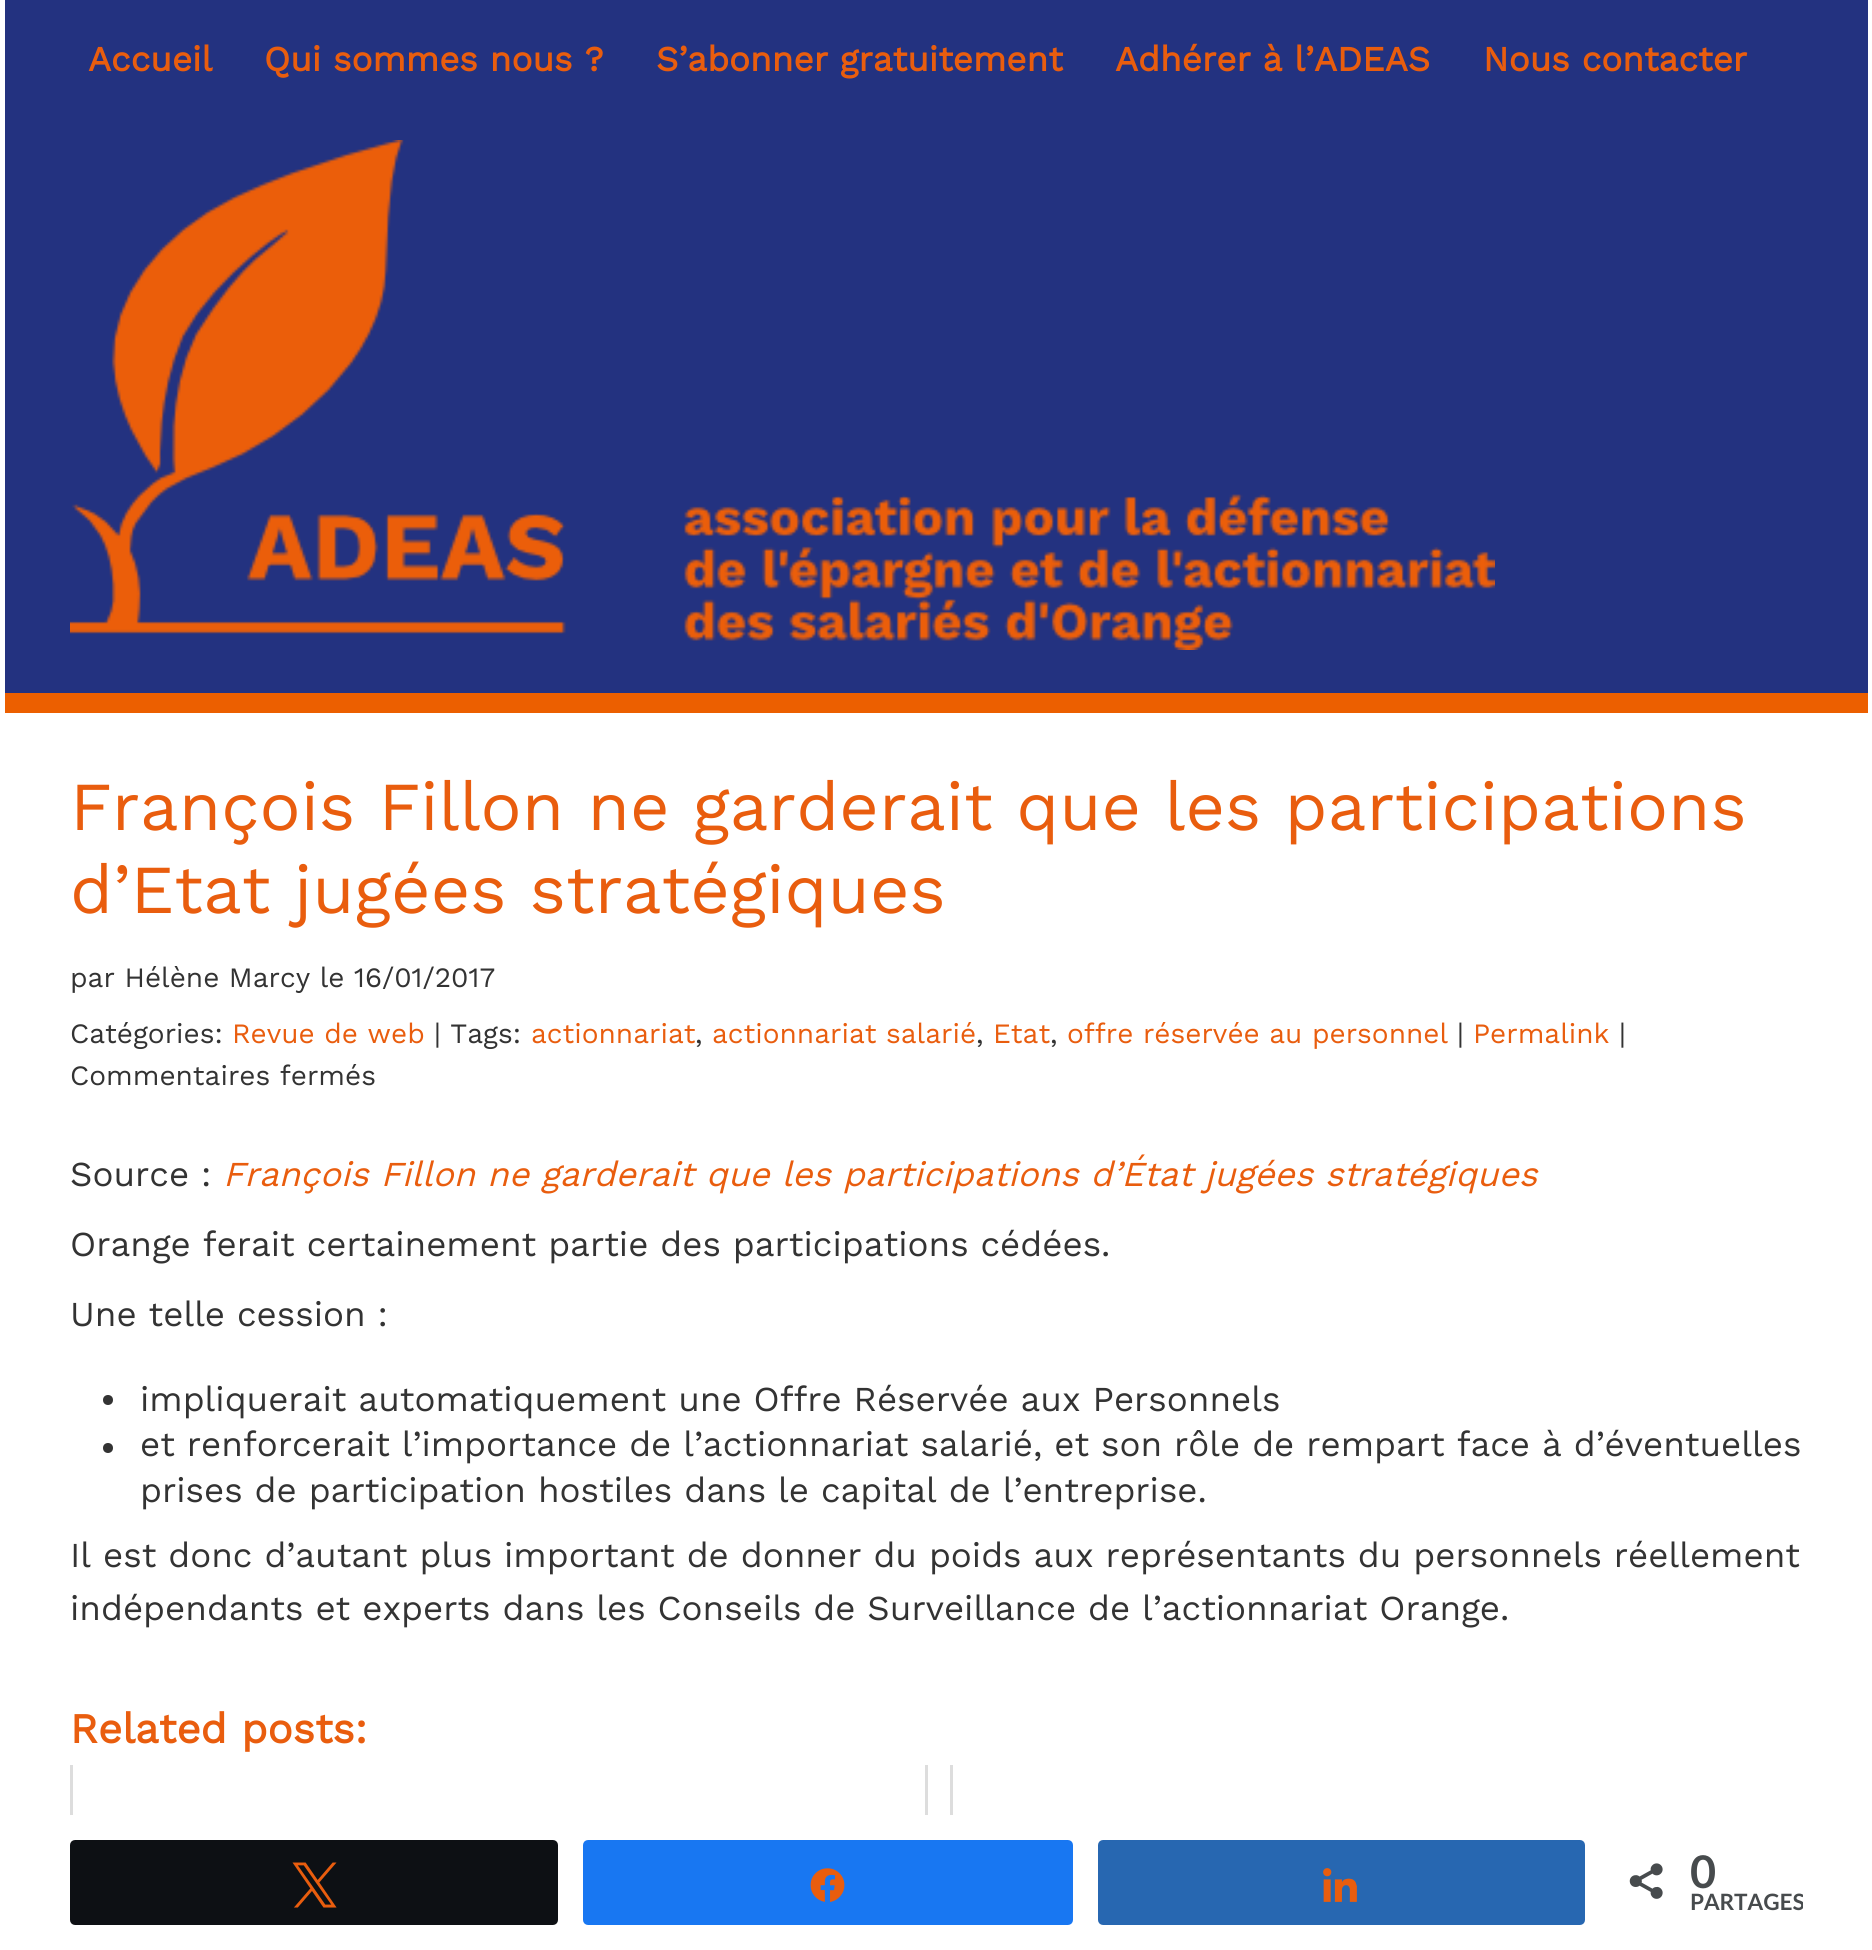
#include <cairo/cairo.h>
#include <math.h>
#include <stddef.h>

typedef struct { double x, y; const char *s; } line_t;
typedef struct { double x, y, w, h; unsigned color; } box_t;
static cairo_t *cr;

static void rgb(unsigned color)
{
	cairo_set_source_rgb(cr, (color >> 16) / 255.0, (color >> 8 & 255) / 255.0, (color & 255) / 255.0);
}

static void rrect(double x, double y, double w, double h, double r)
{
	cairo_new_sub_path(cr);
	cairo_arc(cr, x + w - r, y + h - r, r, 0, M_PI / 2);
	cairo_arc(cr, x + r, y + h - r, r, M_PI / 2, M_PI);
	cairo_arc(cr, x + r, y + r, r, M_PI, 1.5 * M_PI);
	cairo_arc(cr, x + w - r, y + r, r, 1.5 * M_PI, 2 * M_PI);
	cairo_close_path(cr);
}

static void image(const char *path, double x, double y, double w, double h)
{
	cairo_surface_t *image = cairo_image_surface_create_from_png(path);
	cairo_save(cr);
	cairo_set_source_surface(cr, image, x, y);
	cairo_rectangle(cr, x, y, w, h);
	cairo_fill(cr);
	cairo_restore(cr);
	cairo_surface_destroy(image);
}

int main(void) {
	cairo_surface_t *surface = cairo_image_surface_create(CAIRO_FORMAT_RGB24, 1872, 1950);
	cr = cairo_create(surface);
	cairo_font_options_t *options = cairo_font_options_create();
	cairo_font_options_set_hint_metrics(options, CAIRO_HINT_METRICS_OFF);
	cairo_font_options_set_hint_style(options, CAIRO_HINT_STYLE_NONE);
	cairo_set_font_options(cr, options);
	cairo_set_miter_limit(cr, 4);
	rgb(0xffffff);
	cairo_paint(cr);
	rgb(0x233280);
	cairo_rectangle(cr, 5, 0, 1863, 693);
	cairo_fill(cr);
	rgb(0xec5f00);
	cairo_rectangle(cr, 5, 693, 1863, 20);
	cairo_fill(cr);
	image("img/1.png", 70, 140, 1425, 510);
	rgb(0x333333);
	cairo_arc(cr, 108, 1400, 5, 0, 2 * M_PI);
	cairo_fill(cr);
	cairo_arc(cr, 108, 1448, 5, 0, 2 * M_PI);
	cairo_fill(cr);
	{
		static const box_t items[] = {
			{925, 1765, 3, 50, 0xdddddd},
			{70, 1765, 3, 50, 0xdddddd},
			{950, 1765, 3, 50, 0xdddddd},
		};
		for (size_t i = 0; i < sizeof items / sizeof *items; i++) {
			rgb(items[i].color);
			cairo_rectangle(cr, items[i].x, items[i].y, items[i].w, items[i].h);
			cairo_fill(cr);
		}
	}
	rgb(0x0d1014);
	rrect(71.5, 1841.5, 485, 82, 3.5);
	cairo_fill_preserve(cr);
	cairo_set_line_width(cr, 3);
	cairo_stroke(cr);
	image("img/2.png", 292, 1862, 45, 46);
	rgb(0x1877f2);
	rrect(584.5, 1841.5, 487, 82, 3.5);
	cairo_fill_preserve(cr);
	cairo_stroke(cr);
	image("img/3.png", 810, 1868, 35, 34);
	rgb(0x2767b1);
	rrect(1099.5, 1841.5, 484, 82, 3.5);
	cairo_fill_preserve(cr);
	cairo_stroke(cr);
	image("img/4.png", 1323, 1868, 34, 34);
	image("img/5.png", 1629, 1863, 34, 36);
	cairo_select_font_face(cr, "Work Sans", CAIRO_FONT_SLANT_NORMAL, CAIRO_FONT_WEIGHT_BOLD);
	cairo_set_font_size(cr, 35);
	rgb(0xe95d0e);
	{
		static const line_t items[] = {
			{88, 71, "Accueil"},
			{264, 71, "Qui sommes nous ?"},
			{656, 71, "S’abonner gratuitement"},
			{1115, 71, "Adhérer à l’ADEAS"},
			{1483, 71, "Nous contacter"},
		};
		for (size_t i = 0; i < sizeof items / sizeof *items; i++) {
			cairo_move_to(cr, items[i].x, items[i].y);
			cairo_show_text(cr, items[i].s);
		}
	}
	cairo_select_font_face(cr, "Work Sans", CAIRO_FONT_SLANT_NORMAL, CAIRO_FONT_WEIGHT_NORMAL);
	cairo_set_font_size(cr, 68.6);
	cairo_move_to(cr, 70, 830);
	cairo_show_text(cr, "François Fillon ne garderait que les participations");
	cairo_move_to(cr, 70, 913);
	cairo_show_text(cr, "d’Etat jugées stratégiques");
	cairo_set_font_size(cr, 28);
	rgb(0x333333);
	cairo_move_to(cr, 70, 987);
	cairo_show_text(cr, "par Hélène Marcy le 16/01/2017");
	cairo_move_to(cr, 70, 1043);
	cairo_show_text(cr, "Catégories:");
	rgb(0xe95d0e);
	cairo_move_to(cr, 232, 1043);
	cairo_show_text(cr, "Revue de web");
	rgb(0x333333);
	cairo_move_to(cr, 434, 1043);
	cairo_show_text(cr, "| Tags:");
	rgb(0xe95d0e);
	cairo_move_to(cr, 531, 1043);
	cairo_show_text(cr, "actionnariat");
	rgb(0x333333);
	cairo_move_to(cr, 695, 1043);
	cairo_show_text(cr, ",");
	rgb(0xe95d0e);
	cairo_move_to(cr, 712, 1043);
	cairo_show_text(cr, "actionnariat salarié");
	rgb(0x333333);
	cairo_move_to(cr, 976, 1043);
	cairo_show_text(cr, ",");
	rgb(0xe95d0e);
	cairo_move_to(cr, 993, 1043);
	cairo_show_text(cr, "Etat");
	rgb(0x333333);
	cairo_move_to(cr, 1050, 1043);
	cairo_show_text(cr, ",");
	rgb(0xe95d0e);
	cairo_move_to(cr, 1067, 1043);
	cairo_show_text(cr, "offre réservée au personnel");
	rgb(0x333333);
	cairo_move_to(cr, 1457, 1043);
	cairo_show_text(cr, "|");
	rgb(0xe95d0e);
	cairo_move_to(cr, 1473, 1043);
	cairo_show_text(cr, "Permalink");
	rgb(0x333333);
	cairo_move_to(cr, 1619, 1043);
	cairo_show_text(cr, "|");
	cairo_move_to(cr, 70, 1085);
	cairo_show_text(cr, "Commentaires fermés");
	cairo_set_font_size(cr, 35);
	cairo_move_to(cr, 70, 1186);
	cairo_show_text(cr, "Source :");
	cairo_select_font_face(cr, "Work Sans", CAIRO_FONT_SLANT_ITALIC, CAIRO_FONT_WEIGHT_NORMAL);
	rgb(0xe95d0e);
	cairo_move_to(cr, 223, 1186);
	cairo_show_text(cr, "François Fillon ne garderait que les participations d’État jugées stratégiques");
	cairo_select_font_face(cr, "Work Sans", CAIRO_FONT_SLANT_NORMAL, CAIRO_FONT_WEIGHT_NORMAL);
	rgb(0x333333);
	{
		static const line_t items[] = {
			{70, 1256, "Orange ferait certainement partie des participations cédées."},
			{70, 1326, "Une telle cession :"},
			{140, 1411, "impliquerait automatiquement une Offre Réservée aux Personnels"},
			{140, 1456, "et renforcerait l’importance de l’actionnariat salarié, et son rôle de rempart face à d’éventuelles"},
			{140, 1502, "prises de participation hostiles dans le capital de l’entreprise."},
			{70, 1567, "Il est donc d’autant plus important de donner du poids aux représentants du personnels réellement"},
			{70, 1620, "indépendants et experts dans les Conseils de Surveillance de l’actionnariat Orange."},
		};
		for (size_t i = 0; i < sizeof items / sizeof *items; i++) {
			cairo_move_to(cr, items[i].x, items[i].y);
			cairo_show_text(cr, items[i].s);
		}
	}
	cairo_select_font_face(cr, "Work Sans", CAIRO_FONT_SLANT_NORMAL, CAIRO_FONT_WEIGHT_BOLD);
	cairo_set_font_size(cr, 42);
	rgb(0xe95d0e);
	cairo_move_to(cr, 70, 1743);
	cairo_show_text(cr, "Related posts:");
	cairo_select_font_face(cr, "Lato", CAIRO_FONT_SLANT_NORMAL, CAIRO_FONT_WEIGHT_BOLD);
	cairo_set_font_size(cr, 45);
	rgb(0x474b4d);
	cairo_move_to(cr, 1690, 1888);
	cairo_show_text(cr, "0");
	cairo_save(cr);
	cairo_rectangle(cr, 70, 1840, 1733, 85);
	cairo_clip(cr);
	cairo_set_font_size(cr, 22.5);
	cairo_move_to(cr, 1690, 1910);
	cairo_show_text(cr, "PARTAGES");
	cairo_restore(cr);
	cairo_surface_write_to_png(surface, "page.png");
	cairo_font_options_destroy(options);
	cairo_destroy(cr);
	cairo_surface_destroy(surface);
	return 0;
}
